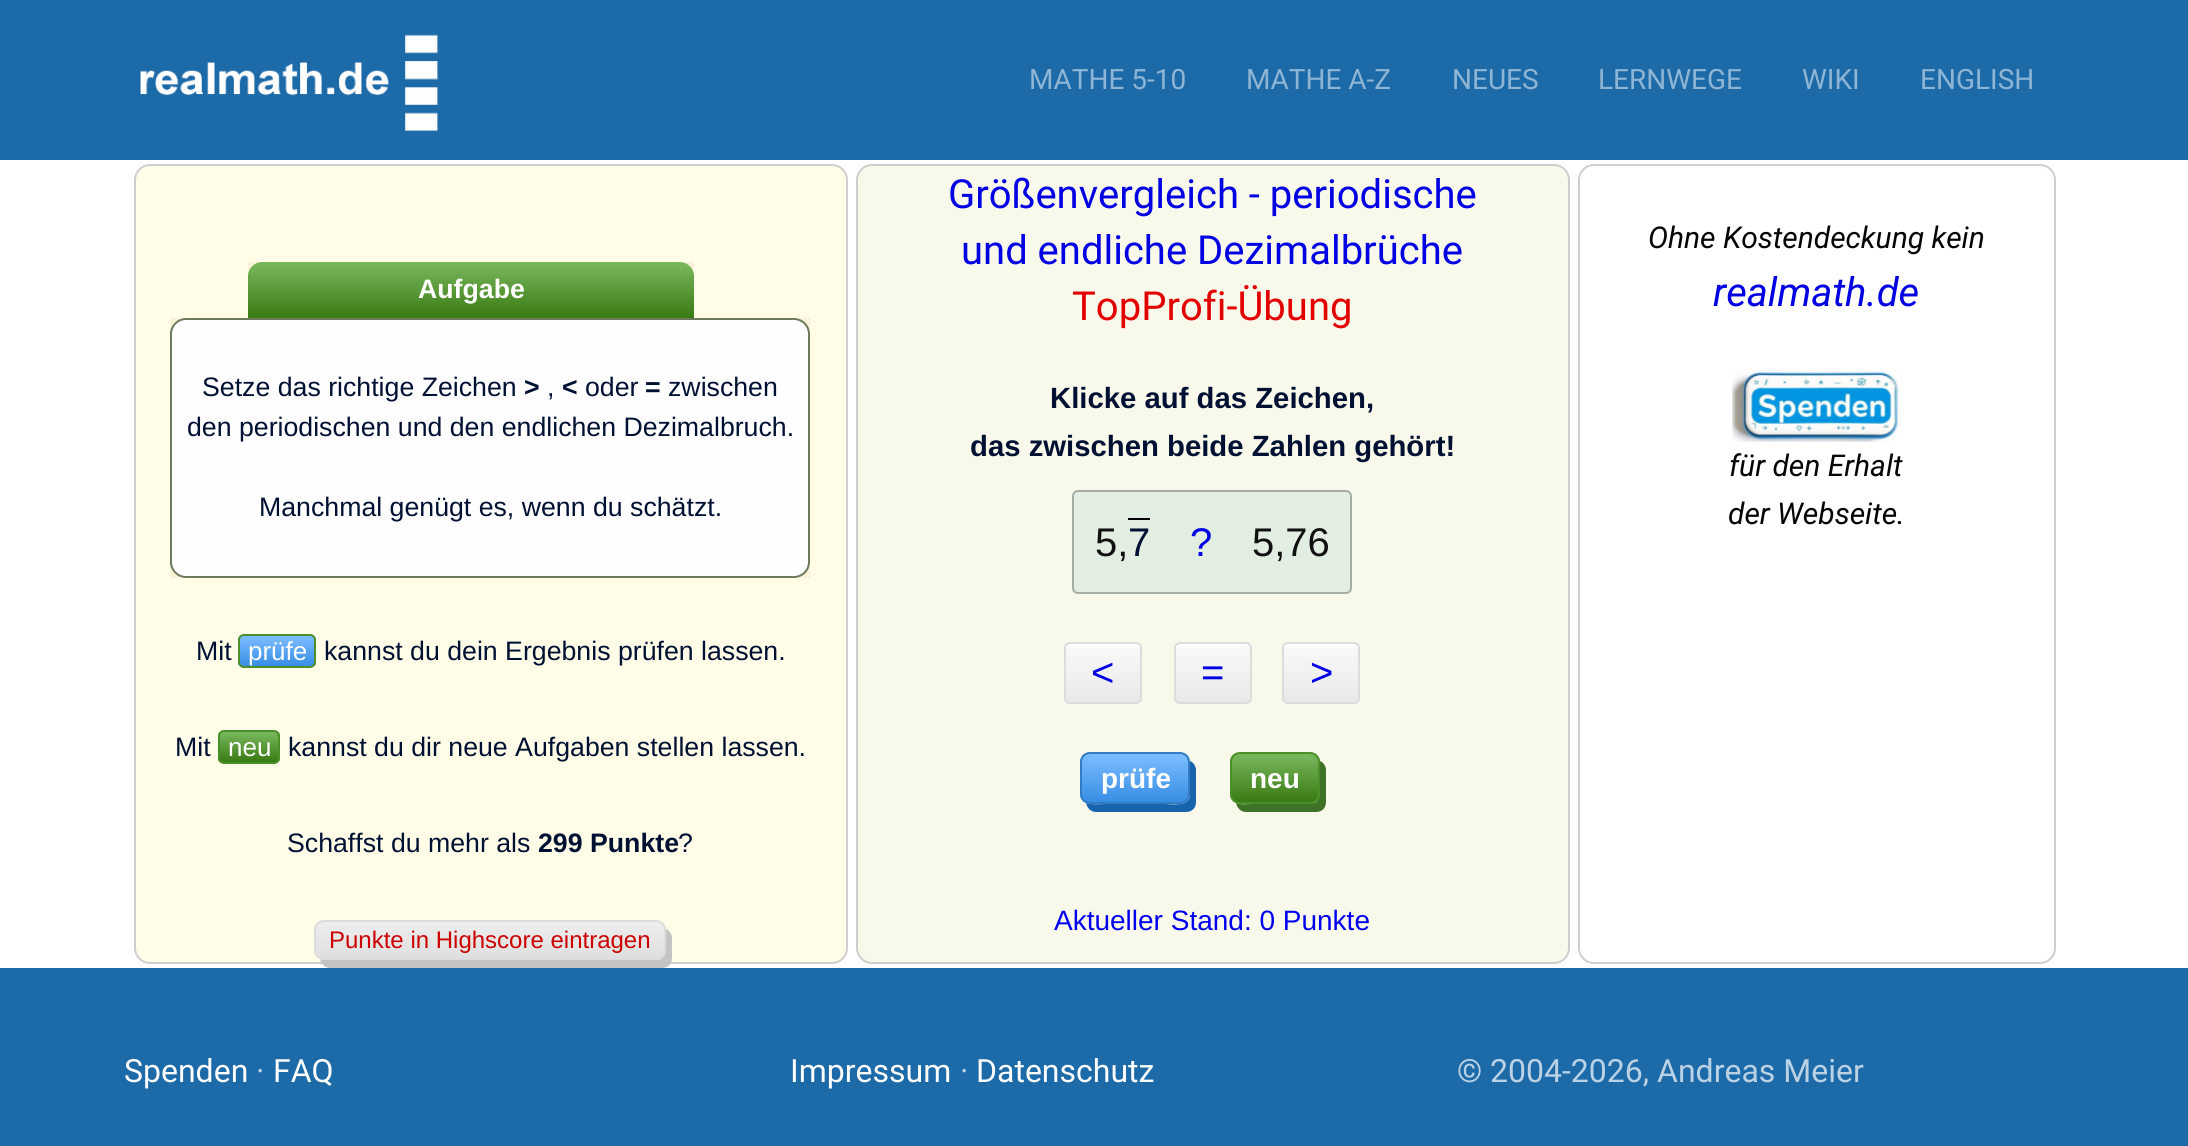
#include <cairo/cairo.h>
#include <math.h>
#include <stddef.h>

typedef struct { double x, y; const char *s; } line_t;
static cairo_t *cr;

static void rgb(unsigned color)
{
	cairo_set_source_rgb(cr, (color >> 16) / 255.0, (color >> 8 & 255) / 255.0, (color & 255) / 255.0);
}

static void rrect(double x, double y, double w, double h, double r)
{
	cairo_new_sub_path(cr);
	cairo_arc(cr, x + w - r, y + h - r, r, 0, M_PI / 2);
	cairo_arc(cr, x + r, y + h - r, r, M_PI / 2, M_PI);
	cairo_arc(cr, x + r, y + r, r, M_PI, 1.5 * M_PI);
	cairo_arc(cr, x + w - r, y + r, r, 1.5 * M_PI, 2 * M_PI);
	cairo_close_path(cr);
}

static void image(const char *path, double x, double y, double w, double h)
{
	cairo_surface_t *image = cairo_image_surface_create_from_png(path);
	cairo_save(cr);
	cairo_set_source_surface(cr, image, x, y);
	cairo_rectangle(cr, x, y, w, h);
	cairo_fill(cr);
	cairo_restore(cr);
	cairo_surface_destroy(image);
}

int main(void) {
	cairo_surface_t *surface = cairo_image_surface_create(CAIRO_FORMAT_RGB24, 2188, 1146);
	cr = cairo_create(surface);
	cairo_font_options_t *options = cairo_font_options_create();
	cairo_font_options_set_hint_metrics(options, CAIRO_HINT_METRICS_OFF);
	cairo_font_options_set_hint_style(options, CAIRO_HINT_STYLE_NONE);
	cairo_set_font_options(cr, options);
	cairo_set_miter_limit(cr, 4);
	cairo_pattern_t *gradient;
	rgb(0xffffff);
	cairo_paint(cr);
	rgb(0x1d6aa9);
	cairo_rectangle(cr, 0, 0, 2188, 160);
	cairo_fill(cr);
	image("img/1.png", 140, 34, 299, 98);
	rgb(0xfffce8);
	rrect(135, 165, 712, 798, 15);
	cairo_fill_preserve(cr);
	rgb(0xcecece);
	cairo_stroke(cr);
	rgb(0xf9f2d9);
	cairo_rectangle(cr, 170, 262, 640, 316);
	cairo_fill(cr);
	rgb(0xfffce8);
	cairo_rectangle(cr, 170, 262, 78, 56);
	cairo_fill(cr);
	gradient = cairo_pattern_create_linear(471, 262, 471, 318);
	cairo_pattern_add_color_stop_rgba(gradient, 0.05, 0.467, 0.71, 0.353, 1);
	cairo_pattern_add_color_stop_rgba(gradient, 1, 0.22, 0.478, 0.071, 1);
	cairo_set_source(cr, gradient);
	cairo_pattern_destroy(gradient);
	cairo_new_path(cr);
	cairo_move_to(cr, 262, 262);
	cairo_line_to(cr, 680, 262);
	cairo_curve_to(cr, 687.5, 262, 694, 268.5, 694, 276);
	cairo_line_to(cr, 694, 318);
	cairo_line_to(cr, 248, 318);
	cairo_line_to(cr, 248, 276);
	cairo_curve_to(cr, 248, 268.5, 254.5, 262, 262, 262);
	cairo_close_path(cr);
	cairo_fill(cr);
	rgb(0xfffce8);
	cairo_rectangle(cr, 694, 262, 116, 56);
	cairo_fill(cr);
	rgb(0xfefefe);
	rrect(171, 319, 638, 258, 15);
	cairo_fill_preserve(cr);
	rgb(0x6d7b5b);
	cairo_stroke(cr);
	cairo_save(cr);
	rrect(238, 634, 78, 34, 6);
	cairo_clip(cr);
	gradient = cairo_pattern_create_linear(277, 636, 277, 666);
	cairo_pattern_add_color_stop_rgba(gradient, 0.05, 0.475, 0.733, 1, 1);
	cairo_pattern_add_color_stop_rgba(gradient, 1, 0.216, 0.553, 0.898, 1);
	cairo_set_source(cr, gradient);
	cairo_pattern_destroy(gradient);
	cairo_rectangle(cr, 238, 636, 78, 30);
	cairo_fill(cr);
	cairo_restore(cr);
	rrect(239, 635, 76, 32, 5);
	rgb(0x4b8f29);
	cairo_stroke(cr);
	cairo_save(cr);
	rrect(218, 730, 62, 34, 6);
	cairo_clip(cr);
	gradient = cairo_pattern_create_linear(249, 732, 249, 762);
	cairo_pattern_add_color_stop_rgba(gradient, 0.05, 0.467, 0.71, 0.353, 1);
	cairo_pattern_add_color_stop_rgba(gradient, 1, 0.22, 0.478, 0.071, 1);
	cairo_set_source(cr, gradient);
	cairo_pattern_destroy(gradient);
	cairo_rectangle(cr, 218, 732, 62, 30);
	cairo_fill(cr);
	cairo_restore(cr);
	rrect(219, 731, 60, 32, 5);
	cairo_stroke(cr);
	rgb(0xc4c4c4);
	cairo_new_path(cr);
	cairo_move_to(cr, 320, 959);
	cairo_curve_to(cr, 321, 964, 325, 968, 330, 968);
	cairo_line_to(cr, 662, 968);
	cairo_curve_to(cr, 668, 968, 672, 964, 672, 958);
	cairo_line_to(cr, 672, 938);
	cairo_curve_to(cr, 672, 934, 669, 930, 666, 929);
	cairo_line_to(cr, 666, 940);
	cairo_curve_to(cr, 666, 948, 667, 960, 656, 960);
	cairo_line_to(cr, 324, 960);
	cairo_close_path(cr);
	cairo_fill(cr);
	cairo_save(cr);
	rrect(314, 920, 352, 40, 10);
	cairo_clip(cr);
	gradient = cairo_pattern_create_linear(490, 922, 490, 958);
	cairo_pattern_add_color_stop_rgba(gradient, 0.05, 0.929, 0.929, 0.929, 1);
	cairo_pattern_add_color_stop_rgba(gradient, 1, 0.875, 0.875, 0.875, 1);
	cairo_set_source(cr, gradient);
	cairo_pattern_destroy(gradient);
	cairo_rectangle(cr, 314, 922, 352, 36);
	cairo_fill(cr);
	cairo_restore(cr);
	rrect(315, 921, 350, 38, 9);
	rgb(0xdcdcdc);
	cairo_stroke(cr);
	rgb(0xf9f9eb);
	rrect(857, 165, 712, 798, 15);
	cairo_fill_preserve(cr);
	rgb(0xcecece);
	cairo_stroke(cr);
	rgb(0xe1eee1);
	rrect(1073, 491, 278, 102, 5);
	cairo_fill_preserve(cr);
	rgb(0xa5aea5);
	cairo_stroke(cr);
	rgb(0x050505);
	cairo_rectangle(cr, 1128, 518, 22, 2);
	cairo_fill(cr);
	cairo_save(cr);
	rrect(1064, 642, 78, 62, 6);
	cairo_clip(cr);
	gradient = cairo_pattern_create_linear(1103, 644, 1103, 702);
	cairo_pattern_add_color_stop_rgba(gradient, 0.05, 0.976, 0.976, 0.976, 1);
	cairo_pattern_add_color_stop_rgba(gradient, 1, 0.914, 0.914, 0.914, 1);
	cairo_set_source(cr, gradient);
	cairo_pattern_destroy(gradient);
	cairo_rectangle(cr, 1064, 644, 78, 58);
	cairo_fill(cr);
	cairo_restore(cr);
	rgb(0xffffff);
	cairo_new_path(cr);
	cairo_move_to(cr, 1070, 646);
	cairo_line_to(cr, 1136, 646);
	cairo_curve_to(cr, 1138, 646, 1140, 648, 1140, 650);
	cairo_curve_to(cr, 1140, 641, 1133, 644, 1125, 644);
	cairo_line_to(cr, 1081, 644);
	cairo_curve_to(cr, 1073, 644, 1066, 641, 1066, 650);
	cairo_curve_to(cr, 1066, 648, 1068, 646, 1070, 646);
	cairo_close_path(cr);
	cairo_fill(cr);
	rrect(1065, 643, 76, 60, 5);
	rgb(0xdcdcdc);
	cairo_stroke(cr);
	cairo_save(cr);
	rrect(1174, 642, 78, 62, 6);
	cairo_clip(cr);
	gradient = cairo_pattern_create_linear(1213, 644, 1213, 702);
	cairo_pattern_add_color_stop_rgba(gradient, 0.05, 0.976, 0.976, 0.976, 1);
	cairo_pattern_add_color_stop_rgba(gradient, 1, 0.914, 0.914, 0.914, 1);
	cairo_set_source(cr, gradient);
	cairo_pattern_destroy(gradient);
	cairo_rectangle(cr, 1174, 644, 78, 58);
	cairo_fill(cr);
	cairo_restore(cr);
	rgb(0xffffff);
	cairo_new_path(cr);
	cairo_move_to(cr, 1180, 646);
	cairo_line_to(cr, 1246, 646);
	cairo_curve_to(cr, 1248, 646, 1250, 648, 1250, 650);
	cairo_curve_to(cr, 1250, 641, 1243, 644, 1235, 644);
	cairo_line_to(cr, 1191, 644);
	cairo_curve_to(cr, 1183, 644, 1176, 641, 1176, 650);
	cairo_curve_to(cr, 1176, 648, 1178, 646, 1180, 646);
	cairo_close_path(cr);
	cairo_fill(cr);
	rrect(1175, 643, 76, 60, 5);
	rgb(0xdcdcdc);
	cairo_stroke(cr);
	cairo_save(cr);
	rrect(1282, 642, 78, 62, 6);
	cairo_clip(cr);
	gradient = cairo_pattern_create_linear(1321, 644, 1321, 702);
	cairo_pattern_add_color_stop_rgba(gradient, 0.05, 0.976, 0.976, 0.976, 1);
	cairo_pattern_add_color_stop_rgba(gradient, 1, 0.914, 0.914, 0.914, 1);
	cairo_set_source(cr, gradient);
	cairo_pattern_destroy(gradient);
	cairo_rectangle(cr, 1282, 644, 78, 58);
	cairo_fill(cr);
	cairo_restore(cr);
	rgb(0xffffff);
	cairo_new_path(cr);
	cairo_move_to(cr, 1288, 646);
	cairo_line_to(cr, 1354, 646);
	cairo_curve_to(cr, 1356, 646, 1358, 648, 1358, 650);
	cairo_curve_to(cr, 1358, 641, 1351, 644, 1343, 644);
	cairo_line_to(cr, 1299, 644);
	cairo_curve_to(cr, 1291, 644, 1284, 641, 1284, 650);
	cairo_curve_to(cr, 1284, 648, 1286, 646, 1288, 646);
	cairo_close_path(cr);
	cairo_fill(cr);
	rrect(1283, 643, 76, 60, 5);
	rgb(0xdcdcdc);
	cairo_stroke(cr);
	rgb(0x1564ad);
	cairo_new_path(cr);
	cairo_move_to(cr, 1086, 803);
	cairo_curve_to(cr, 1087, 808, 1091, 812, 1096, 812);
	cairo_line_to(cr, 1186, 812);
	cairo_curve_to(cr, 1192, 812, 1196, 808, 1196, 802);
	cairo_line_to(cr, 1196, 770);
	cairo_curve_to(cr, 1196, 766, 1193, 762, 1190, 761);
	cairo_line_to(cr, 1190, 796);
	cairo_curve_to(cr, 1188, 807, 1172, 804, 1165, 804);
	cairo_line_to(cr, 1105, 804);
	cairo_curve_to(cr, 1103, 804, 1091, 805, 1086, 803);
	cairo_close_path(cr);
	cairo_fill(cr);
	cairo_save(cr);
	rrect(1080, 752, 110, 52, 10);
	cairo_clip(cr);
	gradient = cairo_pattern_create_linear(1135, 754, 1135, 802);
	cairo_pattern_add_color_stop_rgba(gradient, 0.05, 0.475, 0.733, 1, 1);
	cairo_pattern_add_color_stop_rgba(gradient, 1, 0.216, 0.553, 0.898, 1);
	cairo_set_source(cr, gradient);
	cairo_pattern_destroy(gradient);
	cairo_rectangle(cr, 1080, 754, 110, 48);
	cairo_fill(cr);
	cairo_restore(cr);
	rrect(1081, 753, 108, 50, 9);
	rgb(0x337bc4);
	cairo_stroke(cr);
	rgb(0x3e7327);
	cairo_new_path(cr);
	cairo_move_to(cr, 1236, 803);
	cairo_curve_to(cr, 1237, 808, 1241, 812, 1246, 812);
	cairo_line_to(cr, 1316, 812);
	cairo_curve_to(cr, 1322, 812, 1326, 808, 1326, 802);
	cairo_line_to(cr, 1326, 770);
	cairo_curve_to(cr, 1326, 766, 1323, 762, 1320, 761);
	cairo_line_to(cr, 1320, 783);
	cairo_curve_to(cr, 1320, 804, 1319, 804, 1298, 804);
	cairo_line_to(cr, 1252, 804);
	cairo_curve_to(cr, 1249, 804, 1240, 805, 1236, 803);
	cairo_close_path(cr);
	cairo_fill(cr);
	cairo_save(cr);
	rrect(1230, 752, 90, 52, 10);
	cairo_clip(cr);
	gradient = cairo_pattern_create_linear(1275, 754, 1275, 802);
	cairo_pattern_add_color_stop_rgba(gradient, 0.05, 0.467, 0.71, 0.353, 1);
	cairo_pattern_add_color_stop_rgba(gradient, 1, 0.22, 0.478, 0.071, 1);
	cairo_set_source(cr, gradient);
	cairo_pattern_destroy(gradient);
	cairo_rectangle(cr, 1230, 754, 90, 48);
	cairo_fill(cr);
	cairo_restore(cr);
	rrect(1231, 753, 88, 50, 9);
	rgb(0x4b8f29);
	cairo_stroke(cr);
	rrect(1579, 165, 476, 798, 15);
	rgb(0xcecece);
	cairo_stroke(cr);
	image("img/2.png", 1732, 370, 170, 72);
	rgb(0x1d6aa9);
	cairo_rectangle(cr, 0, 968, 2188, 178);
	cairo_fill(cr);
	cairo_select_font_face(cr, "Roboto", CAIRO_FONT_SLANT_NORMAL, CAIRO_FONT_WEIGHT_NORMAL);
	cairo_set_font_size(cr, 28);
	rgb(0x8eb5d4);
	{
		static const line_t items[] = {
			{1029, 89, "MATHE 5-10"},
			{1246, 89, "MATHE A-Z"},
			{1452, 89, "NEUES"},
			{1598, 89, "LERNWEGE"},
			{1802, 89, "WIKI"},
			{1920, 89, "ENGLISH"},
		};
		for (size_t i = 0; i < sizeof items / sizeof *items; i++) {
			cairo_move_to(cr, items[i].x, items[i].y);
			cairo_show_text(cr, items[i].s);
		}
	}
	cairo_select_font_face(cr, "Liberation Sans", CAIRO_FONT_SLANT_NORMAL, CAIRO_FONT_WEIGHT_BOLD);
	cairo_set_font_size(cr, 26.7);
	rgb(0xfefefe);
	cairo_move_to(cr, 418, 298);
	cairo_show_text(cr, "Aufgabe");
	cairo_select_font_face(cr, "Liberation Sans", CAIRO_FONT_SLANT_NORMAL, CAIRO_FONT_WEIGHT_NORMAL);
	rgb(0x001032);
	cairo_move_to(cr, 202, 396);
	cairo_show_text(cr, "Setze das richtige Zeichen");
	cairo_select_font_face(cr, "Liberation Sans", CAIRO_FONT_SLANT_NORMAL, CAIRO_FONT_WEIGHT_BOLD);
	cairo_move_to(cr, 524, 396);
	cairo_show_text(cr, ">");
	cairo_move_to(cr, 562, 396);
	cairo_show_text(cr, "<");
	cairo_select_font_face(cr, "Liberation Sans", CAIRO_FONT_SLANT_NORMAL, CAIRO_FONT_WEIGHT_NORMAL);
	cairo_move_to(cr, 585, 396);
	cairo_show_text(cr, "oder");
	cairo_select_font_face(cr, "Liberation Sans", CAIRO_FONT_SLANT_NORMAL, CAIRO_FONT_WEIGHT_BOLD);
	cairo_move_to(cr, 645, 396);
	cairo_show_text(cr, "=");
	cairo_select_font_face(cr, "Liberation Sans", CAIRO_FONT_SLANT_NORMAL, CAIRO_FONT_WEIGHT_NORMAL);
	{
		static const line_t items[] = {
			{668, 396, "zwischen"},
			{547, 396, ","},
			{187, 436, "den periodischen und den endlichen Dezimalbruch."},
			{259, 516, "Manchmal genügt es, wenn du schätzt."},
			{196, 660, "Mit"},
		};
		for (size_t i = 0; i < sizeof items / sizeof *items; i++) {
			cairo_move_to(cr, items[i].x, items[i].y);
			cairo_show_text(cr, items[i].s);
		}
	}
	cairo_set_font_size(cr, 26);
	rgb(0xfefefe);
	cairo_move_to(cr, 248, 660);
	cairo_show_text(cr, "prüfe");
	cairo_set_font_size(cr, 26.7);
	rgb(0x001032);
	cairo_move_to(cr, 324, 660);
	cairo_show_text(cr, "kannst du dein Ergebnis prüfen lassen.");
	cairo_move_to(cr, 175, 756);
	cairo_show_text(cr, "Mit");
	cairo_set_font_size(cr, 26);
	rgb(0xfefefe);
	cairo_move_to(cr, 228, 756);
	cairo_show_text(cr, "neu");
	cairo_set_font_size(cr, 26.7);
	rgb(0x001032);
	cairo_move_to(cr, 288, 756);
	cairo_show_text(cr, "kannst du dir neue Aufgaben stellen lassen.");
	cairo_move_to(cr, 287, 852);
	cairo_show_text(cr, "Schaffst du mehr als");
	cairo_select_font_face(cr, "Liberation Sans", CAIRO_FONT_SLANT_NORMAL, CAIRO_FONT_WEIGHT_BOLD);
	cairo_move_to(cr, 538, 852);
	cairo_show_text(cr, "299 Punkte");
	cairo_select_font_face(cr, "Liberation Sans", CAIRO_FONT_SLANT_NORMAL, CAIRO_FONT_WEIGHT_NORMAL);
	cairo_move_to(cr, 678, 852);
	cairo_show_text(cr, "?");
	cairo_set_font_size(cr, 24);
	rgb(0xcc0000);
	cairo_move_to(cr, 329, 948);
	cairo_show_text(cr, "Punkte in Highscore eintragen");
	cairo_select_font_face(cr, "Roboto", CAIRO_FONT_SLANT_NORMAL, CAIRO_FONT_WEIGHT_NORMAL);
	cairo_set_font_size(cr, 40);
	rgb(0x0000e2);
	cairo_move_to(cr, 948, 208);
	cairo_show_text(cr, "Größenvergleich - periodische");
	cairo_move_to(cr, 961, 264);
	cairo_show_text(cr, "und endliche Dezimalbrüche");
	rgb(0xe20000);
	cairo_move_to(cr, 1072, 320);
	cairo_show_text(cr, "TopProfi-Übung");
	cairo_select_font_face(cr, "Liberation Sans", CAIRO_FONT_SLANT_NORMAL, CAIRO_FONT_WEIGHT_BOLD);
	cairo_set_font_size(cr, 29.3);
	rgb(0x001032);
	cairo_move_to(cr, 1050, 408);
	cairo_show_text(cr, "Klicke auf das Zeichen,");
	cairo_move_to(cr, 970, 456);
	cairo_show_text(cr, "das zwischen beide Zahlen gehört!");
	cairo_select_font_face(cr, "Liberation Sans", CAIRO_FONT_SLANT_NORMAL, CAIRO_FONT_WEIGHT_NORMAL);
	cairo_set_font_size(cr, 40);
	rgb(0x101010);
	cairo_move_to(cr, 1095, 556);
	cairo_show_text(cr, "5,");
	rgb(0x001032);
	cairo_move_to(cr, 1128, 556);
	cairo_show_text(cr, "7");
	rgb(0x0000e2);
	cairo_move_to(cr, 1190, 556);
	cairo_show_text(cr, "?");
	rgb(0x101010);
	cairo_move_to(cr, 1252, 556);
	cairo_show_text(cr, "5,76");
	rgb(0x0000e2);
	{
		static const line_t items[] = {
			{1091, 686, "<"},
			{1201, 686, "="},
			{1310, 686, ">"},
		};
		for (size_t i = 0; i < sizeof items / sizeof *items; i++) {
			cairo_move_to(cr, items[i].x, items[i].y);
			cairo_show_text(cr, items[i].s);
		}
	}
	cairo_select_font_face(cr, "Liberation Sans", CAIRO_FONT_SLANT_NORMAL, CAIRO_FONT_WEIGHT_BOLD);
	cairo_set_font_size(cr, 28);
	rgb(0xfefefe);
	cairo_move_to(cr, 1101, 788);
	cairo_show_text(cr, "prüfe");
	cairo_move_to(cr, 1250, 788);
	cairo_show_text(cr, "neu");
	cairo_select_font_face(cr, "Liberation Sans", CAIRO_FONT_SLANT_NORMAL, CAIRO_FONT_WEIGHT_NORMAL);
	rgb(0x0000ee);
	cairo_move_to(cr, 1054, 930);
	cairo_show_text(cr, "Aktueller Stand: 0 Punkte");
	cairo_select_font_face(cr, "Roboto", CAIRO_FONT_SLANT_ITALIC, CAIRO_FONT_WEIGHT_NORMAL);
	cairo_set_font_size(cr, 30);
	rgb(0x050505);
	cairo_move_to(cr, 1648, 248);
	cairo_show_text(cr, "Ohne Kostendeckung kein");
	cairo_set_font_size(cr, 40);
	rgb(0x0000e2);
	cairo_move_to(cr, 1713, 306);
	cairo_show_text(cr, "realmath.de");
	cairo_set_font_size(cr, 30);
	rgb(0x050505);
	cairo_move_to(cr, 1729, 476);
	cairo_show_text(cr, "für den Erhalt");
	cairo_move_to(cr, 1728, 524);
	cairo_show_text(cr, "der Webseite.");
	cairo_select_font_face(cr, "Roboto", CAIRO_FONT_SLANT_NORMAL, CAIRO_FONT_WEIGHT_NORMAL);
	cairo_set_font_size(cr, 32);
	rgb(0xfefefe);
	cairo_move_to(cr, 124, 1082);
	cairo_show_text(cr, "Spenden");
	rgb(0xbbd2e5);
	cairo_move_to(cr, 256, 1082);
	cairo_show_text(cr, "·");
	rgb(0xfefefe);
	cairo_move_to(cr, 273, 1082);
	cairo_show_text(cr, "FAQ");
	cairo_move_to(cr, 790, 1082);
	cairo_show_text(cr, "Impressum");
	rgb(0xbbd2e5);
	cairo_move_to(cr, 960, 1082);
	cairo_show_text(cr, "·");
	rgb(0xfefefe);
	cairo_move_to(cr, 976, 1082);
	cairo_show_text(cr, "Datenschutz");
	rgb(0xbbd2e5);
	cairo_move_to(cr, 1457, 1082);
	cairo_show_text(cr, "© 2004-2026, Andreas Meier");
	cairo_surface_write_to_png(surface, "page.png");
	cairo_font_options_destroy(options);
	cairo_destroy(cr);
	cairo_surface_destroy(surface);
	return 0;
}
